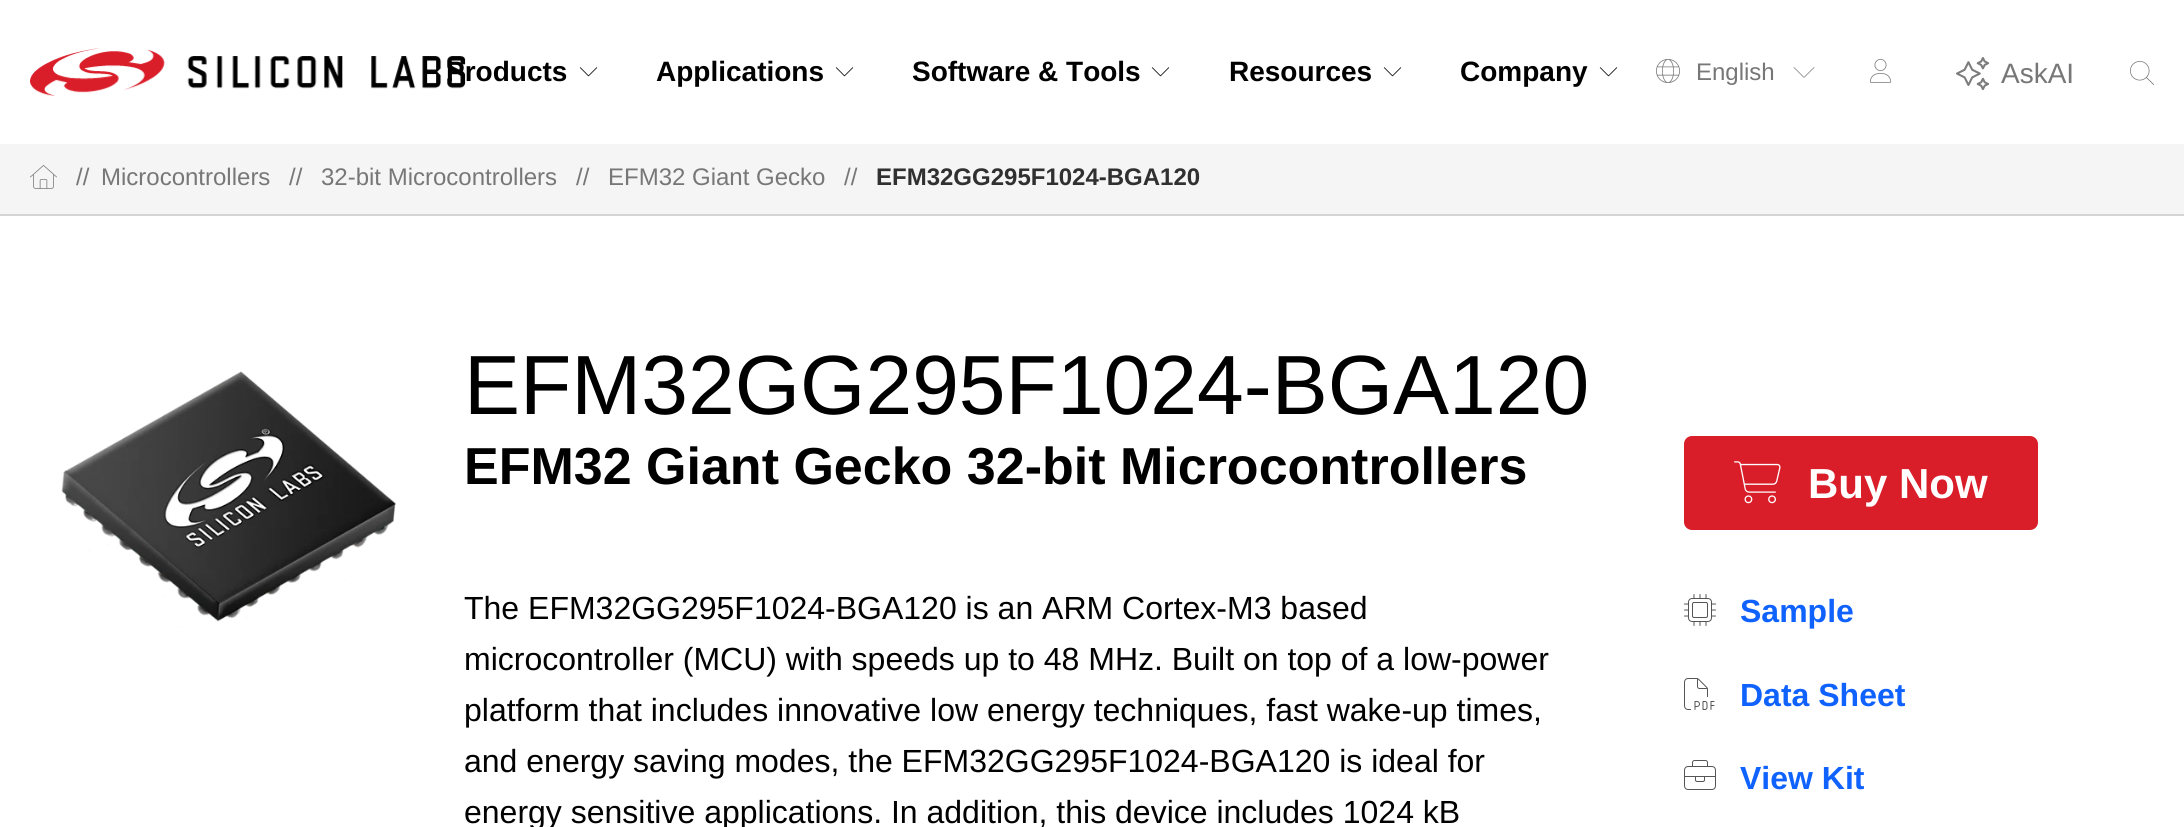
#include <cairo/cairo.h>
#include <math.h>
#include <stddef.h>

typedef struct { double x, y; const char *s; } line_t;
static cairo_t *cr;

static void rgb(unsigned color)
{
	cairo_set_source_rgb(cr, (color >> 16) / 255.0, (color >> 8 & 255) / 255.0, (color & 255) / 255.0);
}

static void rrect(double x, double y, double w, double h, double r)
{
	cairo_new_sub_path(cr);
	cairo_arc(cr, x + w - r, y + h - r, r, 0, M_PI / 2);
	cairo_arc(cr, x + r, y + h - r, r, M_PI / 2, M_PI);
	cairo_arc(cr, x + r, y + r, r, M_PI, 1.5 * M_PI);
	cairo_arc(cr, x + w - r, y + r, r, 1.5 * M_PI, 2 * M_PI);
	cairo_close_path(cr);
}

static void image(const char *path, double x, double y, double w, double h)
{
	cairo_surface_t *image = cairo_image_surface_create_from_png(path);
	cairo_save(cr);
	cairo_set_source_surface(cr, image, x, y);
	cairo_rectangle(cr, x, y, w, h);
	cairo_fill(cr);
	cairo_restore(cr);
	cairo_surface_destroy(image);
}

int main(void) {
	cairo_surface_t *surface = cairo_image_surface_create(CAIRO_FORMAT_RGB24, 2184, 827);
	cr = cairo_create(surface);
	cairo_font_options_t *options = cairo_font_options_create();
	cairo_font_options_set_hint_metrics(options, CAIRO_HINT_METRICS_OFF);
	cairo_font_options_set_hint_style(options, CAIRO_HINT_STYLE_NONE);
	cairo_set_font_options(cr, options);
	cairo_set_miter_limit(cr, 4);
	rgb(0xffffff);
	cairo_paint(cr);
	image("img/2.png", 579, 67, 19, 10);
	image("img/2.png", 835, 67, 19, 10);
	image("img/2.png", 1151, 67, 19, 10);
	image("img/2.png", 1383, 67, 19, 10);
	image("img/2.png", 1599, 67, 19, 10);
	image("img/3.png", 1656, 59, 24, 24);
	rgb(0x777777);
	cairo_new_path(cr);
	cairo_move_to(cr, 1803.5, 77.5);
	cairo_line_to(cr, 1804.5, 77.5);
	cairo_line_to(cr, 1814.5, 67.5);
	cairo_line_to(cr, 1814, 67);
	cairo_line_to(cr, 1804, 77);
	cairo_line_to(cr, 1794, 67);
	cairo_line_to(cr, 1793.5, 67.5);
	cairo_close_path(cr);
	cairo_fill(cr);
	image("img/4.png", 1870, 59, 21, 24);
	image("img/5.png", 1956, 57, 34, 34);
	image("img/6.png", 2130, 61, 24, 24);
	rgb(0xf5f5f5);
	cairo_rectangle(cr, 0, 144, 2184, 70);
	cairo_fill(cr);
	rgb(0xd4d4d4);
	cairo_rectangle(cr, 0, 214, 2184, 2);
	cairo_fill(cr);
	image("img/7.png", 30, 165, 27, 24);
	image("img/8.png", 61, 371, 335, 257);
	rgb(0xd91e2a);
	rrect(1684, 436, 354, 94, 8);
	cairo_fill(cr);
	image("img/9.png", 1734, 461, 47, 43);
	image("img/10.png", 1684, 594, 32, 32);
	image("img/11.png", 1684, 678, 31, 32);
	image("img/12.png", 1684, 760, 32, 30);
	cairo_select_font_face(cr, "Liberation Sans", CAIRO_FONT_SLANT_NORMAL, CAIRO_FONT_WEIGHT_BOLD);
	cairo_set_font_size(cr, 28);
	rgb(0x000000);
	cairo_move_to(cr, 446, 81);
	cairo_show_text(cr, "Products");
	image("img/1.png", 30, 48, 436, 48);
	{
		static const line_t items[] = {
			{656, 81, "Applications"},
			{912, 81, "Software & Tools"},
			{1229, 81, "Resources"},
			{1460, 81, "Company"},
		};
		for (size_t i = 0; i < sizeof items / sizeof *items; i++) {
			cairo_move_to(cr, items[i].x, items[i].y);
			cairo_show_text(cr, items[i].s);
		}
	}
	cairo_select_font_face(cr, "Liberation Sans", CAIRO_FONT_SLANT_NORMAL, CAIRO_FONT_WEIGHT_NORMAL);
	cairo_set_font_size(cr, 24);
	rgb(0x777777);
	cairo_move_to(cr, 1696, 80);
	cairo_show_text(cr, "English");
	cairo_set_font_size(cr, 28);
	cairo_move_to(cr, 2001, 83);
	cairo_show_text(cr, "AskAI");
	cairo_set_font_size(cr, 24);
	{
		static const line_t items[] = {
			{76, 185, "//"},
			{101, 185, "Microcontrollers"},
			{289, 185, "//"},
			{321, 185, "32-bit Microcontrollers"},
			{576, 185, "//"},
			{608, 185, "EFM32 Giant Gecko"},
			{844, 185, "//"},
		};
		for (size_t i = 0; i < sizeof items / sizeof *items; i++) {
			cairo_move_to(cr, items[i].x, items[i].y);
			cairo_show_text(cr, items[i].s);
		}
	}
	cairo_select_font_face(cr, "Liberation Sans", CAIRO_FONT_SLANT_NORMAL, CAIRO_FONT_WEIGHT_BOLD);
	rgb(0x303030);
	cairo_move_to(cr, 876, 185);
	cairo_show_text(cr, "EFM32GG295F1024-BGA120");
	cairo_select_font_face(cr, "Liberation Sans", CAIRO_FONT_SLANT_NORMAL, CAIRO_FONT_WEIGHT_NORMAL);
	cairo_set_font_size(cr, 84);
	rgb(0x000000);
	cairo_move_to(cr, 464, 414);
	cairo_show_text(cr, "EFM32GG295F1024-BGA120");
	cairo_select_font_face(cr, "Liberation Sans", CAIRO_FONT_SLANT_NORMAL, CAIRO_FONT_WEIGHT_BOLD);
	cairo_set_font_size(cr, 52);
	cairo_move_to(cr, 464, 484);
	cairo_show_text(cr, "EFM32 Giant Gecko 32-bit Microcontrollers");
	cairo_select_font_face(cr, "Liberation Sans", CAIRO_FONT_SLANT_NORMAL, CAIRO_FONT_WEIGHT_NORMAL);
	cairo_set_font_size(cr, 32);
	{
		static const line_t items[] = {
			{464, 619, "The EFM32GG295F1024-BGA120 is an ARM Cortex-M3 based"},
			{464, 670, "microcontroller (MCU) with speeds up to 48 MHz. Built on top of a low-power"},
			{464, 721, "platform that includes innovative low energy techniques, fast wake-up times,"},
			{464, 772, "and energy saving modes, the EFM32GG295F1024-BGA120 is ideal for"},
			{464, 823, "energy sensitive applications. In addition, this device includes 1024 kB"},
		};
		for (size_t i = 0; i < sizeof items / sizeof *items; i++) {
			cairo_move_to(cr, items[i].x, items[i].y);
			cairo_show_text(cr, items[i].s);
		}
	}
	cairo_select_font_face(cr, "Liberation Sans", CAIRO_FONT_SLANT_NORMAL, CAIRO_FONT_WEIGHT_BOLD);
	cairo_set_font_size(cr, 42);
	rgb(0xffffff);
	cairo_move_to(cr, 1808, 498);
	cairo_show_text(cr, "Buy Now");
	cairo_set_font_size(cr, 32);
	rgb(0x0f62fe);
	{
		static const line_t items[] = {
			{1740, 622, "Sample"},
			{1740, 706, "Data Sheet"},
			{1740, 789, "View Kit"},
		};
		for (size_t i = 0; i < sizeof items / sizeof *items; i++) {
			cairo_move_to(cr, items[i].x, items[i].y);
			cairo_show_text(cr, items[i].s);
		}
	}
	cairo_surface_write_to_png(surface, "page.png");
	cairo_font_options_destroy(options);
	cairo_destroy(cr);
	cairo_surface_destroy(surface);
	return 0;
}
